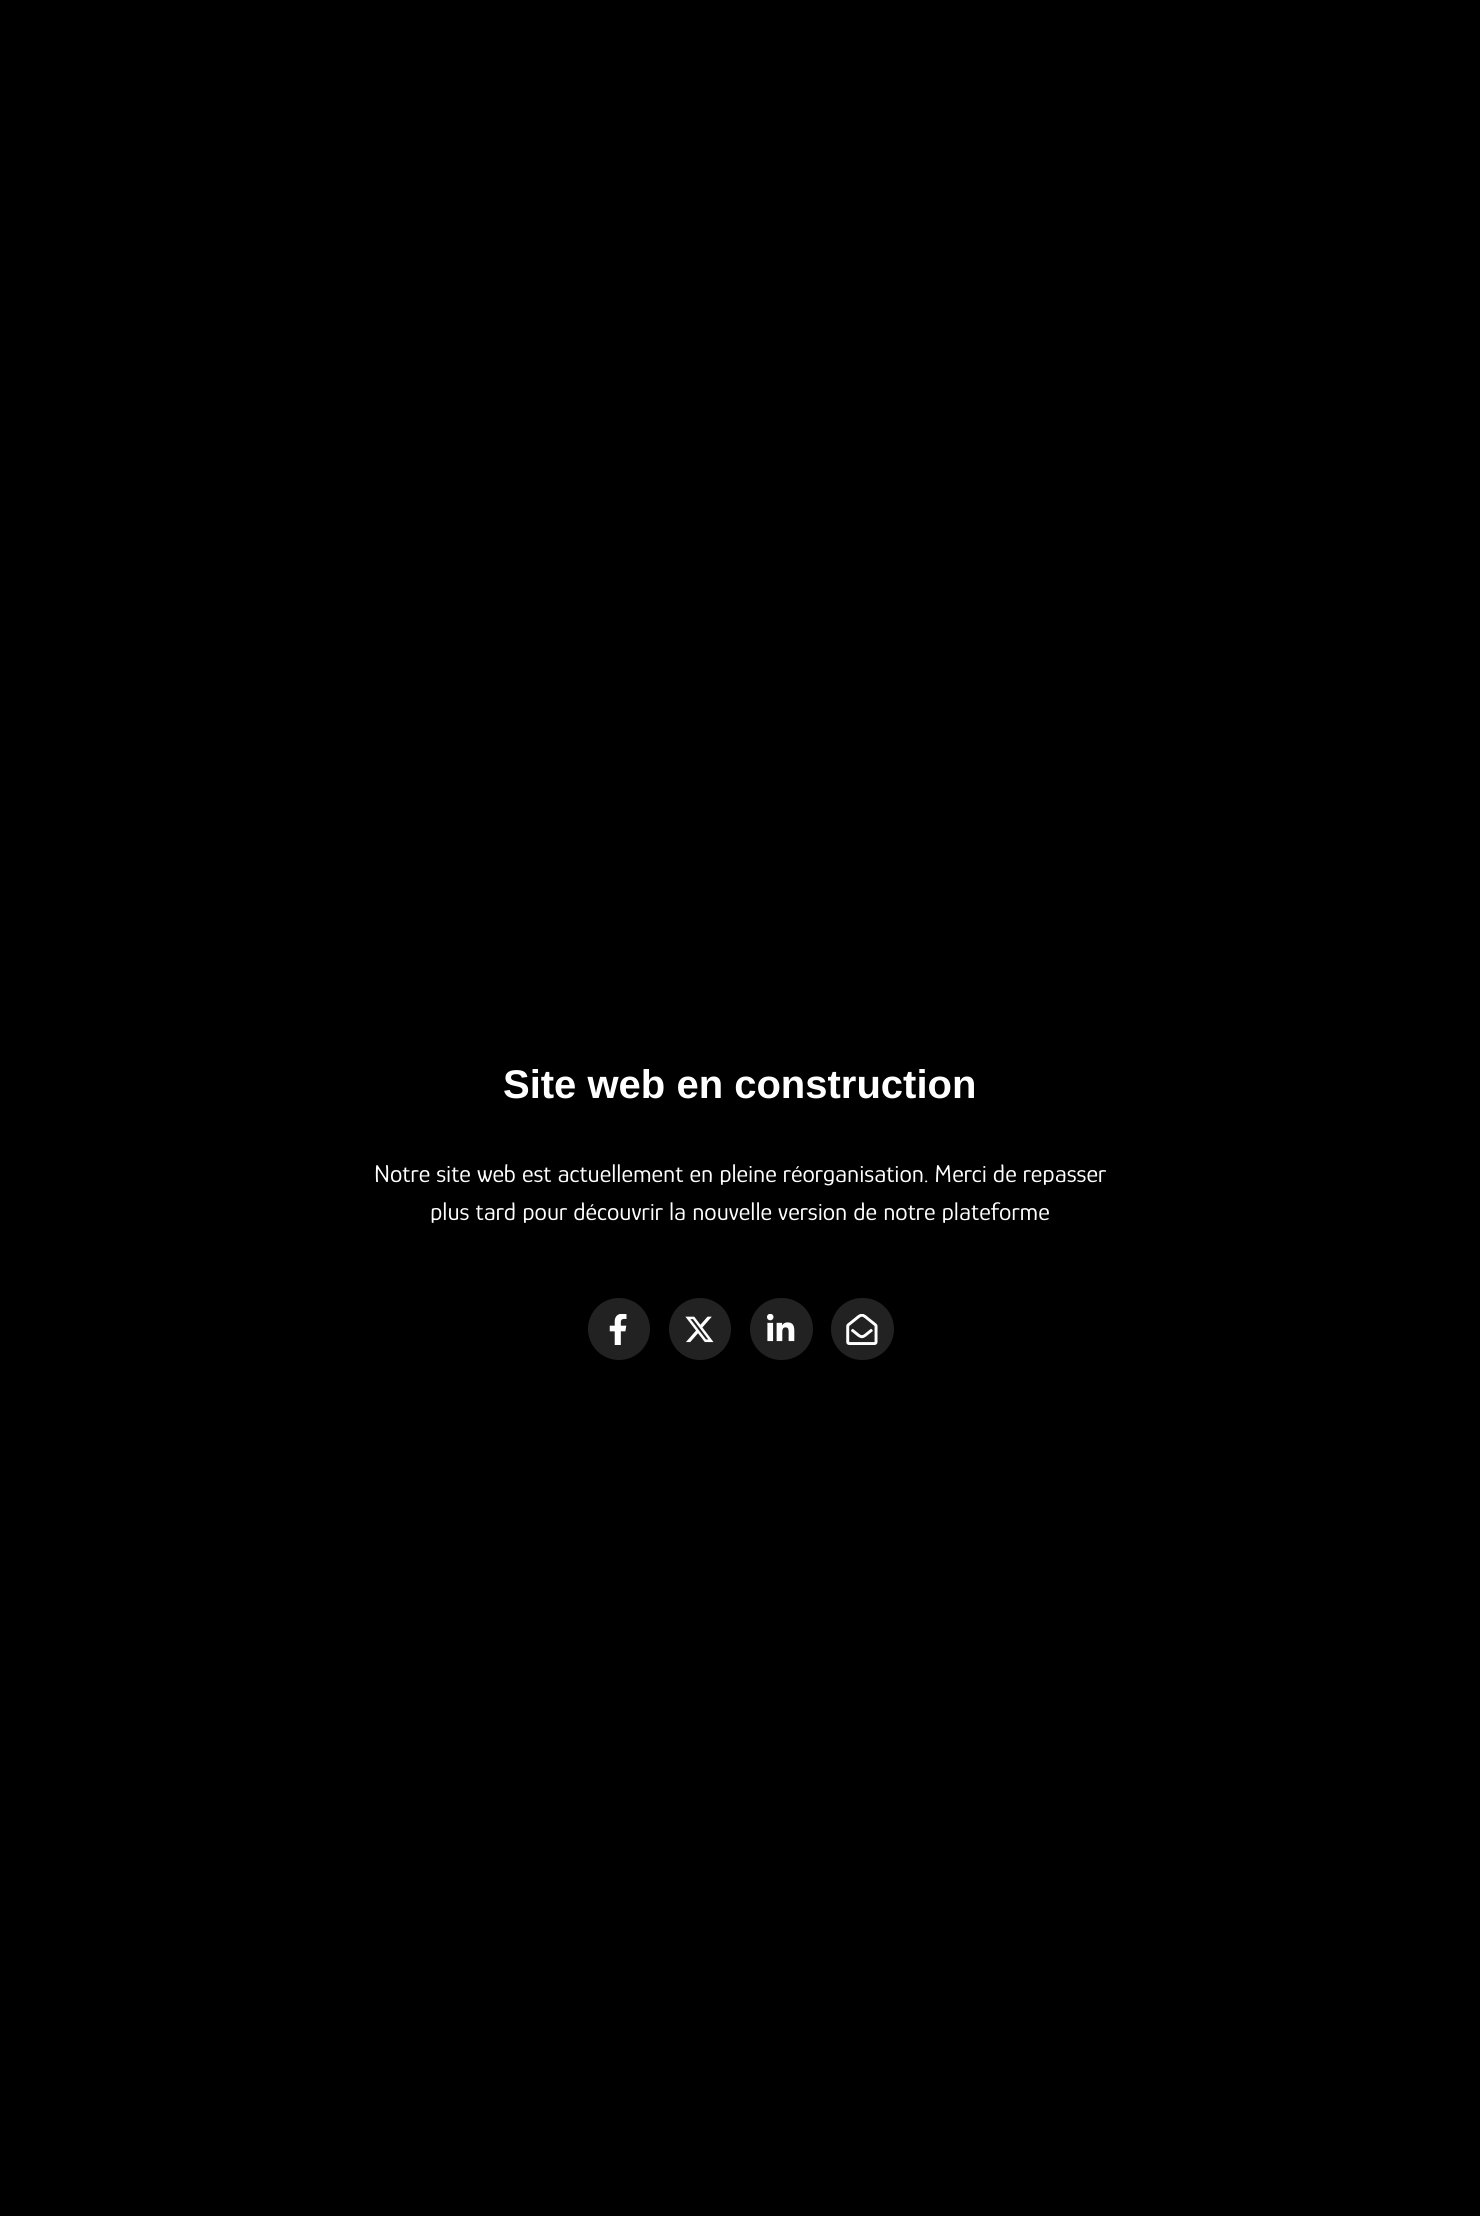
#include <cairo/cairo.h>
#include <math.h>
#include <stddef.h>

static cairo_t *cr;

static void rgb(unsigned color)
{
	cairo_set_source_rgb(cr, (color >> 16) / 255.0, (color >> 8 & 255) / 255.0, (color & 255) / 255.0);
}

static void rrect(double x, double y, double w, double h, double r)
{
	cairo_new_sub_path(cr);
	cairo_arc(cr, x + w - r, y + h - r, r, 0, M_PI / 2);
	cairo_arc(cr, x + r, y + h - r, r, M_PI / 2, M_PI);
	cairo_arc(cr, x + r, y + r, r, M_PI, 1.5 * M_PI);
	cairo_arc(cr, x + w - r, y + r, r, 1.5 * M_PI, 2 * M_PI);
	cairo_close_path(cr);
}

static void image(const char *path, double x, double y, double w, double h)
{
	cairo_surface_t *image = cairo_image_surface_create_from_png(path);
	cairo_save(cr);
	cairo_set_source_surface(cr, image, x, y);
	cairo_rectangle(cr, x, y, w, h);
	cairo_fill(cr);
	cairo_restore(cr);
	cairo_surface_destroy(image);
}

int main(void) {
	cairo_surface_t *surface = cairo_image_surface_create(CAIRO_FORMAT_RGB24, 1480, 2216);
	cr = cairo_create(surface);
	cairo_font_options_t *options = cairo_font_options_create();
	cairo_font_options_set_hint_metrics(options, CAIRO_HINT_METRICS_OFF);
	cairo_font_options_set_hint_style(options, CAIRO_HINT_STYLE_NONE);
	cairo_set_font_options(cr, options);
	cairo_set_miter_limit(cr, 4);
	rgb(0x000000);
	cairo_paint(cr);
	rgb(0x222222);
	cairo_arc(cr, 619, 1329, 31, 0, 2 * M_PI);
	cairo_fill(cr);
	image("img/1.png", 609, 1314, 18, 31);
	cairo_arc(cr, 700, 1329, 31, 0, 2 * M_PI);
	cairo_fill(cr);
	image("img/2.png", 685, 1316, 29, 27);
	rrect(750, 1298, 63, 62, 31);
	cairo_fill(cr);
	image("img/3.png", 767, 1314, 28, 28);
	rrect(831, 1298, 63, 62, 31);
	cairo_fill(cr);
	image("img/4.png", 846, 1314, 32, 31);
	cairo_select_font_face(cr, "Liberation Sans", CAIRO_FONT_SLANT_NORMAL, CAIRO_FONT_WEIGHT_BOLD);
	cairo_set_font_size(cr, 40);
	rgb(0xffffff);
	cairo_move_to(cr, 503, 1098);
	cairo_show_text(cr, "Site web en construction");
	cairo_select_font_face(cr, "Glory", CAIRO_FONT_SLANT_NORMAL, CAIRO_FONT_WEIGHT_NORMAL);
	cairo_set_font_size(cr, 25);
	cairo_move_to(cr, 374, 1182);
	cairo_show_text(cr, "Notre site web est actuellement en pleine réorganisation. Merci de repasser");
	cairo_move_to(cr, 430, 1220);
	cairo_show_text(cr, "plus tard pour découvrir la nouvelle version de notre plateforme");
	cairo_surface_write_to_png(surface, "page.png");
	cairo_font_options_destroy(options);
	cairo_destroy(cr);
	cairo_surface_destroy(surface);
	return 0;
}
